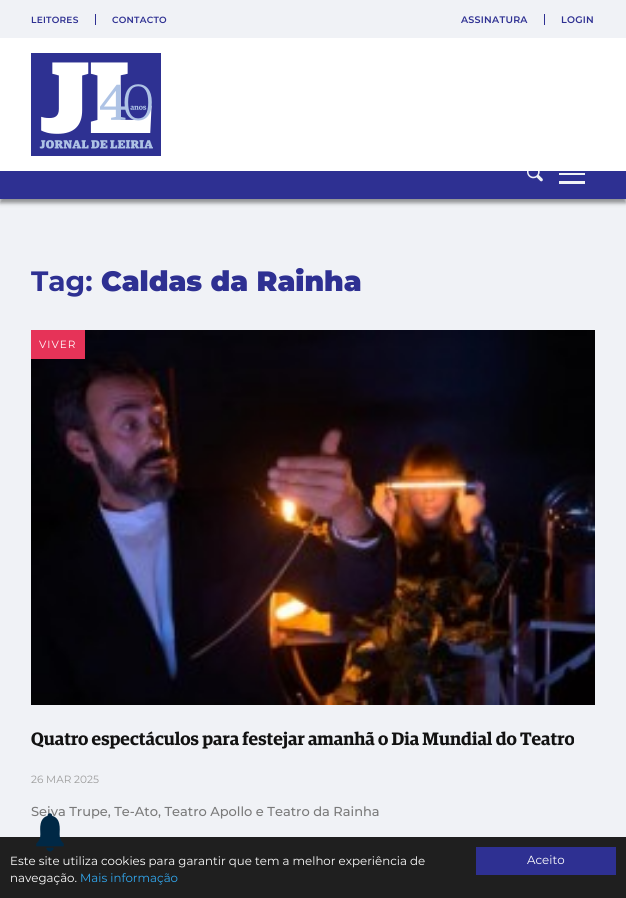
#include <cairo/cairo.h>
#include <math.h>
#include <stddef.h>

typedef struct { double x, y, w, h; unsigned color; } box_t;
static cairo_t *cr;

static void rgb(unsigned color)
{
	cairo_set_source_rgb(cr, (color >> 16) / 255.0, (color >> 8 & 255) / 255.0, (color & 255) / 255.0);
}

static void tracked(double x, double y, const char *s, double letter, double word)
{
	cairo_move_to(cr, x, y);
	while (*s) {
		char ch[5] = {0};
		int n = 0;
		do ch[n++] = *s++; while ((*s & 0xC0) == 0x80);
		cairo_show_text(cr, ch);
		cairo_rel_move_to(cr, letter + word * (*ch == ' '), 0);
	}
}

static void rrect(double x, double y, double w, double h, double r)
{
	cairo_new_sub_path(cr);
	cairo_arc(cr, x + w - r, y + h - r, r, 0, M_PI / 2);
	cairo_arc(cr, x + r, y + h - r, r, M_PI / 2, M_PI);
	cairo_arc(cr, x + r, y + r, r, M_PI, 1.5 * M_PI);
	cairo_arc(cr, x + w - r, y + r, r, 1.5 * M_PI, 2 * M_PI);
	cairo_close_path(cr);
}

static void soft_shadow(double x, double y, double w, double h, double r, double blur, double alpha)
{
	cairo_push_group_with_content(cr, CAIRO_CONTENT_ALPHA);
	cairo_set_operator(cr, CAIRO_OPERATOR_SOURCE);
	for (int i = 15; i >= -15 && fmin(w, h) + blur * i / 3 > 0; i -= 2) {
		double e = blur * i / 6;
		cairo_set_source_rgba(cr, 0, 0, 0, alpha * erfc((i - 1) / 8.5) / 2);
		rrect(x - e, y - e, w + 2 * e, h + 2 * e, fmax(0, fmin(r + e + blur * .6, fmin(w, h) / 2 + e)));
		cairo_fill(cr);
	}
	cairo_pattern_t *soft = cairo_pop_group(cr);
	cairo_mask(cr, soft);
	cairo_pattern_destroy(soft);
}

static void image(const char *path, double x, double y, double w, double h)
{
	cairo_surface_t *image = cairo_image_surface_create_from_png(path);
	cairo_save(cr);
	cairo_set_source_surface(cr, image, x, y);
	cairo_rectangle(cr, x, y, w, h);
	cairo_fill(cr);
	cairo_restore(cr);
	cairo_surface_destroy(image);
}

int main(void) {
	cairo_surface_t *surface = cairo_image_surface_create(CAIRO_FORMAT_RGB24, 626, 898);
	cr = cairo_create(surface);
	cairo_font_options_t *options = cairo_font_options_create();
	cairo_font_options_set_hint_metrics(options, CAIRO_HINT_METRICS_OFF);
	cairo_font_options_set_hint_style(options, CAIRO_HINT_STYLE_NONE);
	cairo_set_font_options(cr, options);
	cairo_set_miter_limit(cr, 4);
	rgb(0xf0f2f6);
	cairo_paint(cr);
	rgb(0x2e3092);
	cairo_rectangle(cr, 95, 14, 1, 11);
	cairo_fill(cr);
	cairo_rectangle(cr, 544, 14, 1, 11);
	cairo_fill(cr);
	rgb(0x000000);
	soft_shadow(0, 155, 626, 48, 0, 2, 0.4);
	rgb(0xffffff);
	cairo_rectangle(cr, 0, 38, 626, 133);
	cairo_fill(cr);
	image("img/1.png", 31, 53, 130, 103);
	rgb(0x2e3092);
	cairo_rectangle(cr, 0, 171, 626, 28);
	cairo_fill(cr);
	image("img/2.png", 527, 171, 16, 11);
	rgb(0xf0f2f6);
	cairo_rectangle(cr, 559, 181, 26, 3);
	cairo_fill(cr);
	cairo_rectangle(cr, 559, 173, 26, 2);
	cairo_fill(cr);
	image("img/3.png", 31, 330, 564, 375);
	{
		static const box_t items[] = {
			{31, 330, 54, 29, 0xe63358},
			{0, 837, 626, 61, 0x1f1f1f},
			{476, 847, 140, 28, 0x2e3092},
		};
		for (size_t i = 0; i < sizeof items / sizeof *items; i++) {
			rgb(items[i].color);
			cairo_rectangle(cr, items[i].x, items[i].y, items[i].w, items[i].h);
			cairo_fill(cr);
		}
	}
	cairo_select_font_face(cr, "Montserrat SemiBold", CAIRO_FONT_SLANT_NORMAL, CAIRO_FONT_WEIGHT_NORMAL);
	cairo_set_font_size(cr, 9);
	tracked(31, 23, "LEITORES", 0.25, 0);
	tracked(112, 23, "CONTACTO", 0.25, 0);
	cairo_set_font_size(cr, 9.5);
	tracked(461, 23, "ASSINATURA", 0.25, 0);
	tracked(561, 23, "LOGIN", 0.25, 0);
	cairo_select_font_face(cr, "Montserrat", CAIRO_FONT_SLANT_NORMAL, CAIRO_FONT_WEIGHT_BOLD);
	cairo_set_font_size(cr, 28);
	cairo_move_to(cr, 31, 291);
	cairo_show_text(cr, "Tag:");
	cairo_select_font_face(cr, "Montserrat Black", CAIRO_FONT_SLANT_NORMAL, CAIRO_FONT_WEIGHT_NORMAL);
	cairo_move_to(cr, 101, 291);
	cairo_show_text(cr, "Caldas da Rainha");
	cairo_select_font_face(cr, "Montserrat", CAIRO_FONT_SLANT_NORMAL, CAIRO_FONT_WEIGHT_NORMAL);
	cairo_set_font_size(cr, 10.5);
	rgb(0xffffff);
	tracked(39, 348, "VIVER", 1, 0);
	cairo_select_font_face(cr, "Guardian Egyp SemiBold", CAIRO_FONT_SLANT_NORMAL, CAIRO_FONT_WEIGHT_NORMAL);
	cairo_set_font_size(cr, 18);
	rgb(0x121212);
	cairo_move_to(cr, 31, 745);
	cairo_show_text(cr, "Quatro espectáculos para festejar amanhã o Dia Mundial do Teatro");
	cairo_select_font_face(cr, "Montserrat", CAIRO_FONT_SLANT_NORMAL, CAIRO_FONT_WEIGHT_NORMAL);
	cairo_set_font_size(cr, 10.5);
	rgb(0x9b9b9b);
	cairo_move_to(cr, 31, 783);
	cairo_show_text(cr, "26 MAR 2025");
	cairo_select_font_face(cr, "Montserrat Medium", CAIRO_FONT_SLANT_NORMAL, CAIRO_FONT_WEIGHT_NORMAL);
	cairo_set_font_size(cr, 13);
	rgb(0x7a7a7a);
	cairo_move_to(cr, 31, 816);
	cairo_show_text(cr, "Seiva Trupe, Te-Ato, Teatro Apollo e Teatro da Rainha");
	image("img/4.png", 36, 813, 28, 39);
	cairo_select_font_face(cr, "Montserrat", CAIRO_FONT_SLANT_NORMAL, CAIRO_FONT_WEIGHT_NORMAL);
	cairo_set_font_size(cr, 11.8);
	rgb(0xffffff);
	cairo_move_to(cr, 10, 865);
	cairo_show_text(cr, "Este site utiliza cookies para garantir que tem a melhor experiência de");
	cairo_move_to(cr, 10, 882);
	cairo_show_text(cr, "navegação.");
	rgb(0x31a8f0);
	cairo_move_to(cr, 80, 882);
	cairo_show_text(cr, "Mais informação");
	rgb(0xffffff);
	cairo_move_to(cr, 527, 864);
	cairo_show_text(cr, "Aceito");
	cairo_surface_write_to_png(surface, "page.png");
	cairo_font_options_destroy(options);
	cairo_destroy(cr);
	cairo_surface_destroy(surface);
	return 0;
}
